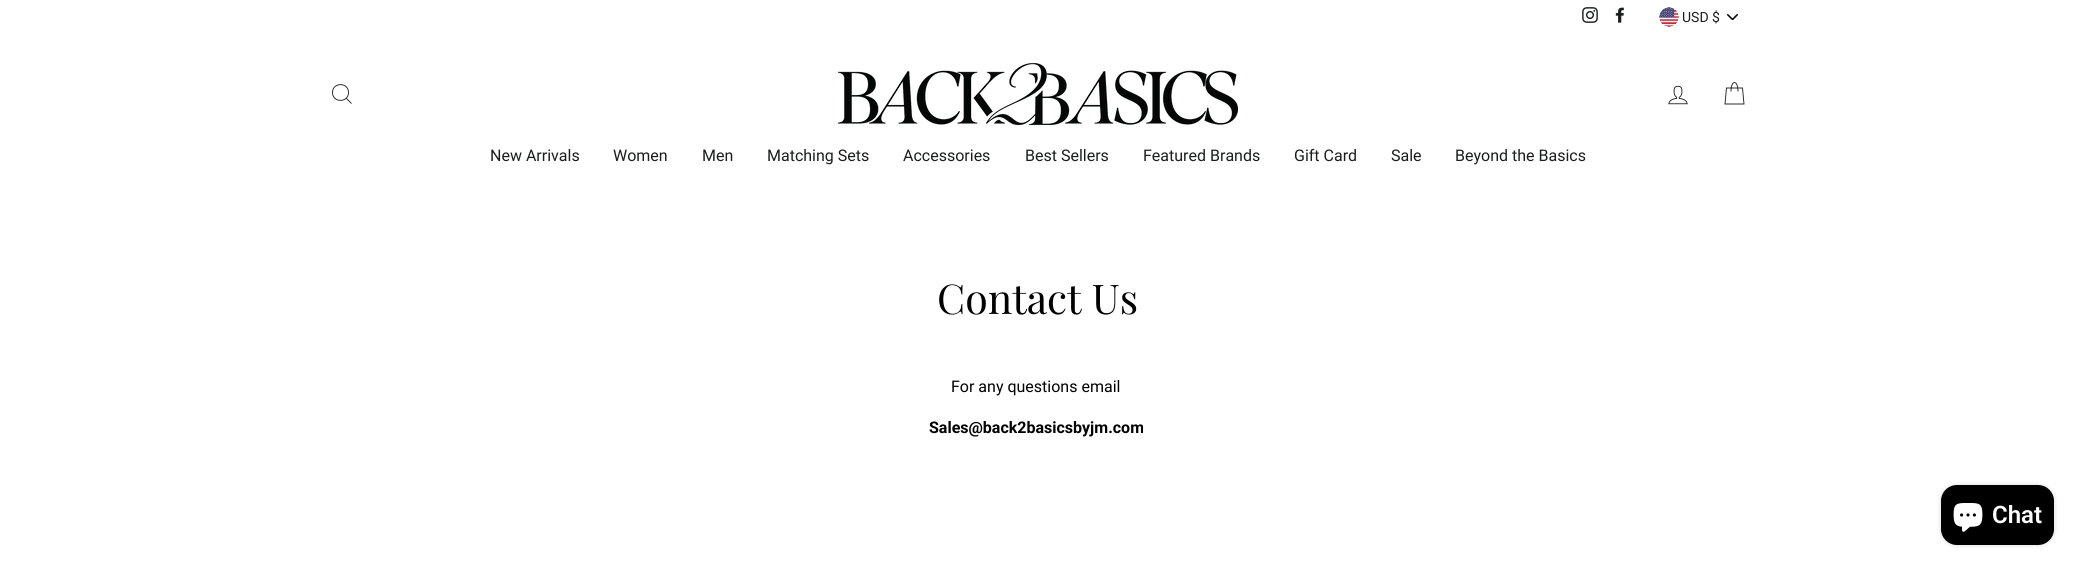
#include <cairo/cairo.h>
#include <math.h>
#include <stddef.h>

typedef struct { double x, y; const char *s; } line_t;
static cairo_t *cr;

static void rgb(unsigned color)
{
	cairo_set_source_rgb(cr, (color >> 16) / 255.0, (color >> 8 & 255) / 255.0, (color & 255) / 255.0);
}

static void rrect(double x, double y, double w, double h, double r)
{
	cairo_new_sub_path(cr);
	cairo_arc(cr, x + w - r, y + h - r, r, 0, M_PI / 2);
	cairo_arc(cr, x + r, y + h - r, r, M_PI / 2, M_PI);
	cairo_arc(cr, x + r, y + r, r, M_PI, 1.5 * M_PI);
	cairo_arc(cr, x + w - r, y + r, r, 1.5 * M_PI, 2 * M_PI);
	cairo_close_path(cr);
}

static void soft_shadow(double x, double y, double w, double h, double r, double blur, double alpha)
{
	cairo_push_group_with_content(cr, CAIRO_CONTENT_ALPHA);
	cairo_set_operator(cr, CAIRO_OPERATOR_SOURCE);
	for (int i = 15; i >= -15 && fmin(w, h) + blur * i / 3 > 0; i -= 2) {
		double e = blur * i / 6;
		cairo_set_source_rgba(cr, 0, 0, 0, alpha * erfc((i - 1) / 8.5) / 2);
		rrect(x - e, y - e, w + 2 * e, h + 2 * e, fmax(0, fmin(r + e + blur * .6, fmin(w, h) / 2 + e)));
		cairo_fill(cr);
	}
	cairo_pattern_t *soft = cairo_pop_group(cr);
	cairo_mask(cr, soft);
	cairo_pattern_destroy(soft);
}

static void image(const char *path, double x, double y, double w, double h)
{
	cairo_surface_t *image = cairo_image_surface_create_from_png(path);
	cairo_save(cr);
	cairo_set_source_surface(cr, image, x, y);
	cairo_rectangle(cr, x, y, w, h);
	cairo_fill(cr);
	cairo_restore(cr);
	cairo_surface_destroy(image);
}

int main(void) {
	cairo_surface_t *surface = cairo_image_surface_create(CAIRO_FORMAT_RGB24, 2076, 566);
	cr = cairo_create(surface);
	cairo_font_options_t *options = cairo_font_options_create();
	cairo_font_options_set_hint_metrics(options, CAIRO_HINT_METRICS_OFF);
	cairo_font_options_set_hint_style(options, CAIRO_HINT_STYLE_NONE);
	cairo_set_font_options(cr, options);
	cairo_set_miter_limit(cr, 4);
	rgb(0xffffff);
	cairo_paint(cr);
	image("img/1.png", 1582, 7, 16, 16);
	image("img/2.png", 1615, 7, 9, 16);
	image("img/3.png", 1727, 14, 11, 6);
	image("img/4.png", 1659, 7, 20, 20);
	cairo_new_path(cr);
	cairo_move_to(cr, 348.5, 92.5);
	cairo_curve_to(cr, 348.5, 103, 332.5, 103, 332.5, 92.5);
	cairo_curve_to(cr, 332.5, 82, 348.5, 82, 348.5, 92.5);
	cairo_close_path(cr);
	cairo_move_to(cr, 351.5, 103.5);
	cairo_line_to(cr, 346.5, 98.5);
	rgb(0x1c1d1d);
	cairo_set_line_width(cr, 0.9);
	cairo_stroke(cr);
	image("img/5.png", 838, 63, 400, 62);
	image("img/6.png", 1668, 85, 20, 20);
	cairo_new_path(cr);
	cairo_move_to(cr, 1731, 91.5);
	cairo_curve_to(cr, 1731, 79.5, 1738, 79.5, 1738, 91.5);
	cairo_move_to(cr, 1726.5, 88);
	cairo_line_to(cr, 1742.5, 88);
	cairo_line_to(cr, 1744, 104);
	cairo_line_to(cr, 1725, 104);
	cairo_close_path(cr);
	cairo_stroke(cr);
	rgb(0x000000);
	soft_shadow(1941, 485, 113, 60, 16, 2.5, 0.15);
	rgb(0x000000);
	rrect(1941, 485, 113, 60, 16);
	cairo_fill(cr);
	image("img/7.png", 1953, 503, 30, 29);
	cairo_select_font_face(cr, "Roboto", CAIRO_FONT_SLANT_NORMAL, CAIRO_FONT_WEIGHT_NORMAL);
	cairo_set_font_size(cr, 14);
	rgb(0x1c1d1d);
	cairo_move_to(cr, 1682, 22);
	cairo_show_text(cr, "USD $");
	cairo_set_font_size(cr, 16);
	{
		static const line_t items[] = {
			{490, 161, "New Arrivals"},
			{613, 161, "Women"},
			{702, 161, "Men"},
			{767, 161, "Matching Sets"},
			{903, 161, "Accessories"},
			{1025, 161, "Best Sellers"},
			{1143, 161, "Featured Brands"},
			{1294, 161, "Gift Card"},
			{1391, 161, "Sale"},
			{1455, 161, "Beyond the Basics"},
		};
		for (size_t i = 0; i < sizeof items / sizeof *items; i++) {
			cairo_move_to(cr, items[i].x, items[i].y);
			cairo_show_text(cr, items[i].s);
		}
	}
	cairo_select_font_face(cr, "Playfair Display", CAIRO_FONT_SLANT_NORMAL, CAIRO_FONT_WEIGHT_NORMAL);
	cairo_set_font_size(cr, 41);
	rgb(0x000000);
	cairo_move_to(cr, 937, 314);
	cairo_show_text(cr, "Contact Us");
	cairo_select_font_face(cr, "Roboto", CAIRO_FONT_SLANT_NORMAL, CAIRO_FONT_WEIGHT_NORMAL);
	cairo_set_font_size(cr, 16);
	cairo_move_to(cr, 951, 392);
	cairo_show_text(cr, "For any questions email");
	cairo_select_font_face(cr, "Roboto", CAIRO_FONT_SLANT_NORMAL, CAIRO_FONT_WEIGHT_BOLD);
	cairo_move_to(cr, 929, 433);
	cairo_show_text(cr, "Sales@back2basicsbyjm.com");
	cairo_select_font_face(cr, "Roboto SemiBold", CAIRO_FONT_SLANT_NORMAL, CAIRO_FONT_WEIGHT_NORMAL);
	cairo_set_font_size(cr, 24);
	rgb(0xffffff);
	cairo_move_to(cr, 1992, 523);
	cairo_show_text(cr, "Chat");
	cairo_surface_write_to_png(surface, "page.png");
	cairo_font_options_destroy(options);
	cairo_destroy(cr);
	cairo_surface_destroy(surface);
	return 0;
}
